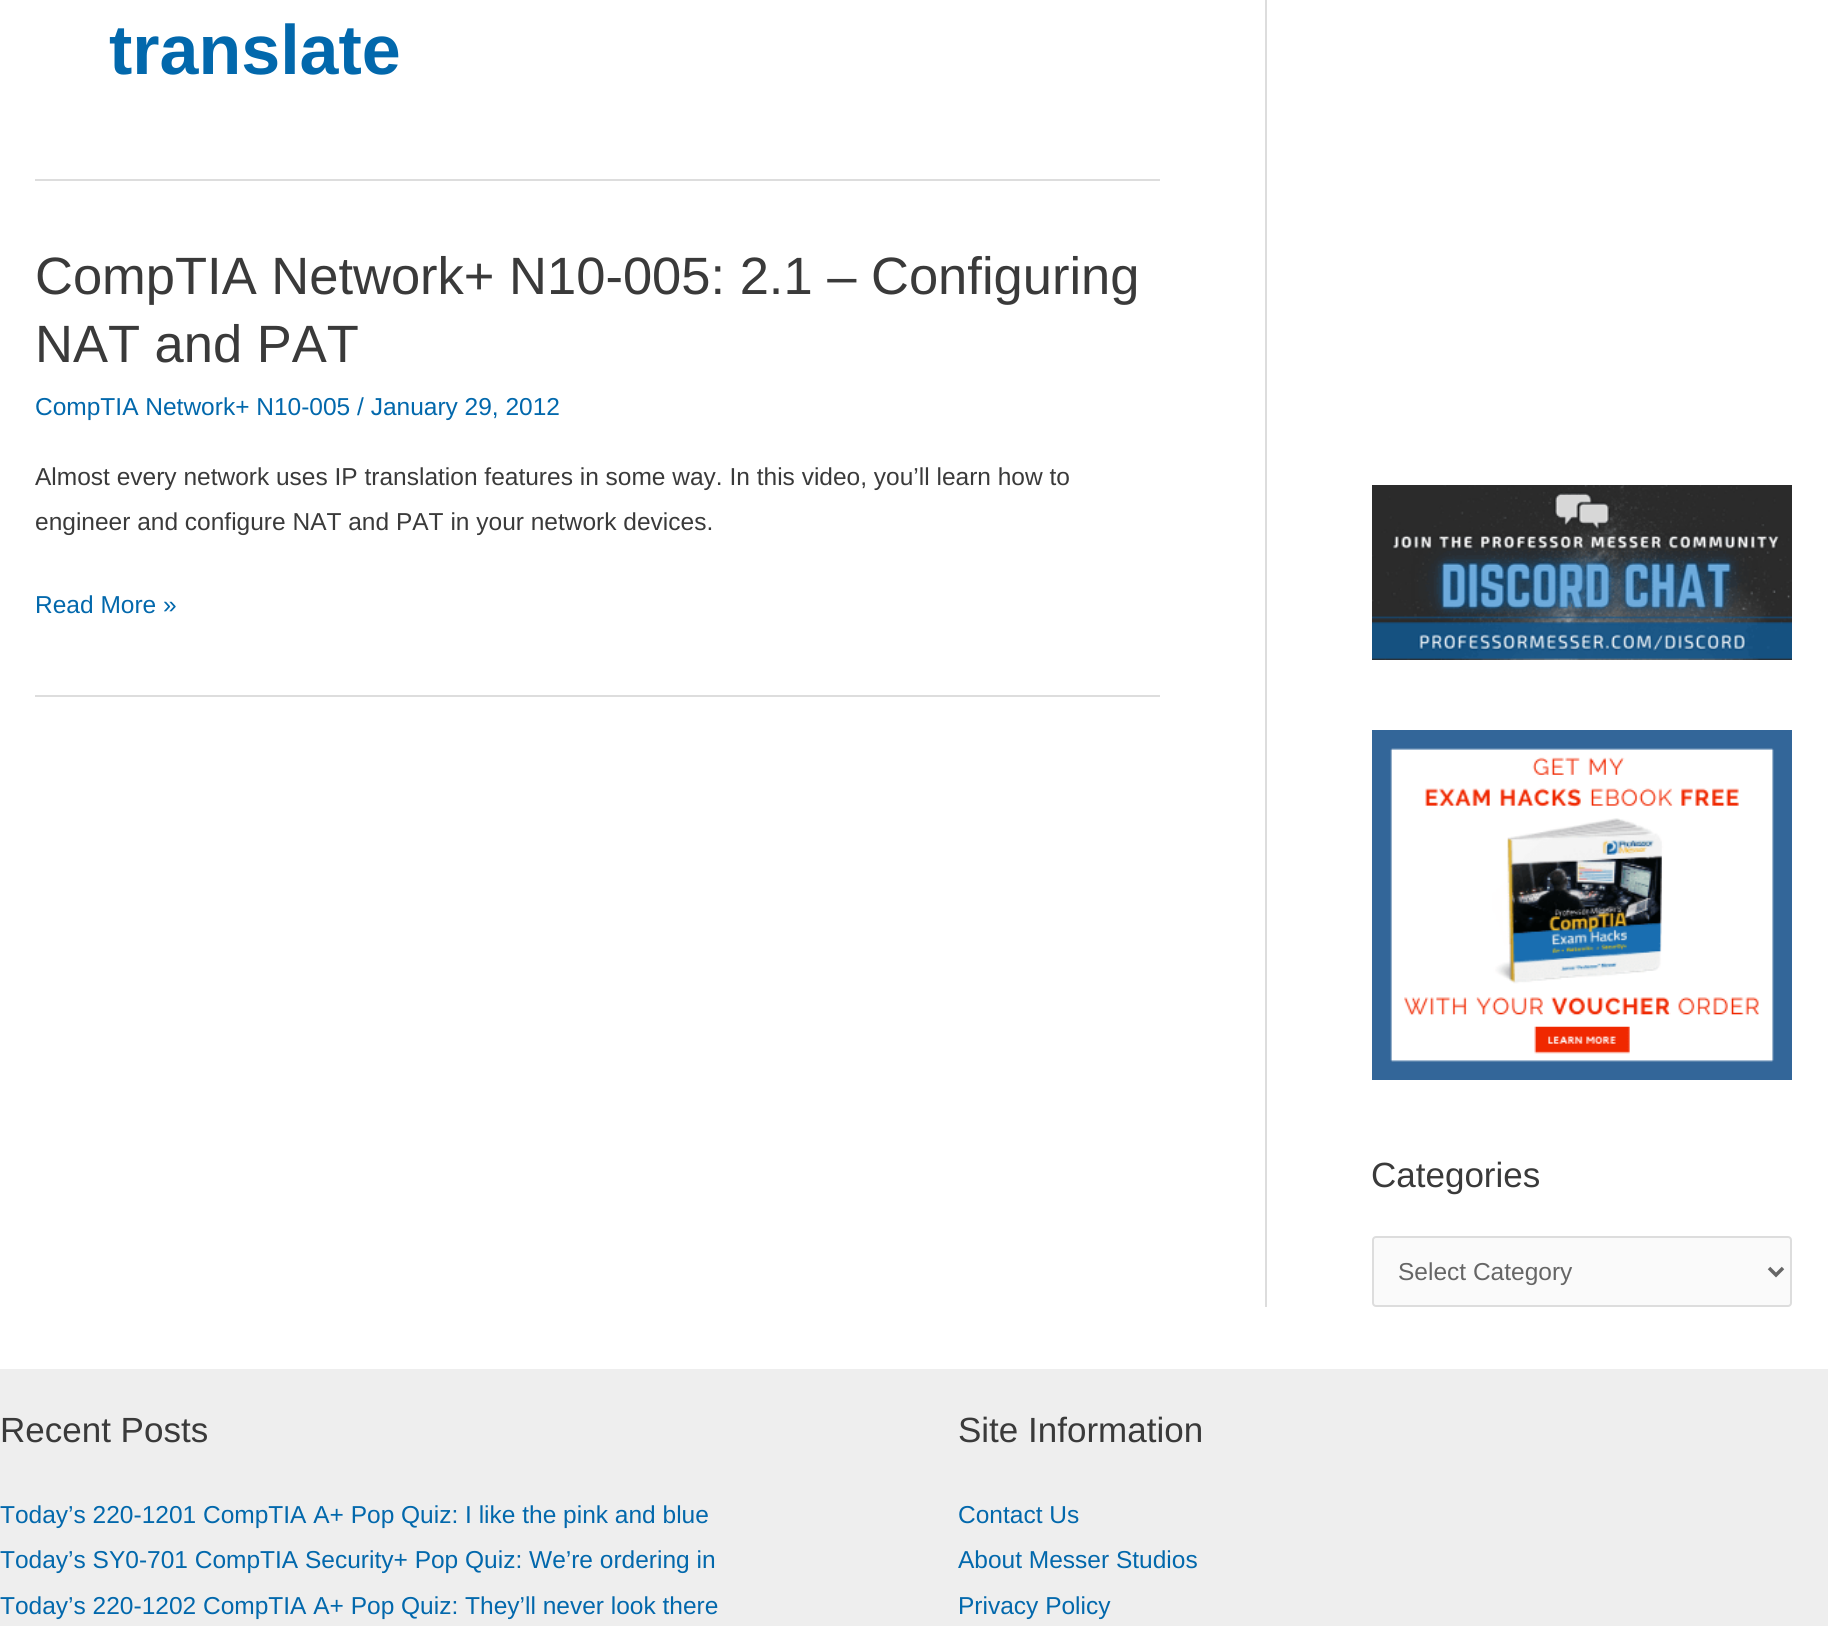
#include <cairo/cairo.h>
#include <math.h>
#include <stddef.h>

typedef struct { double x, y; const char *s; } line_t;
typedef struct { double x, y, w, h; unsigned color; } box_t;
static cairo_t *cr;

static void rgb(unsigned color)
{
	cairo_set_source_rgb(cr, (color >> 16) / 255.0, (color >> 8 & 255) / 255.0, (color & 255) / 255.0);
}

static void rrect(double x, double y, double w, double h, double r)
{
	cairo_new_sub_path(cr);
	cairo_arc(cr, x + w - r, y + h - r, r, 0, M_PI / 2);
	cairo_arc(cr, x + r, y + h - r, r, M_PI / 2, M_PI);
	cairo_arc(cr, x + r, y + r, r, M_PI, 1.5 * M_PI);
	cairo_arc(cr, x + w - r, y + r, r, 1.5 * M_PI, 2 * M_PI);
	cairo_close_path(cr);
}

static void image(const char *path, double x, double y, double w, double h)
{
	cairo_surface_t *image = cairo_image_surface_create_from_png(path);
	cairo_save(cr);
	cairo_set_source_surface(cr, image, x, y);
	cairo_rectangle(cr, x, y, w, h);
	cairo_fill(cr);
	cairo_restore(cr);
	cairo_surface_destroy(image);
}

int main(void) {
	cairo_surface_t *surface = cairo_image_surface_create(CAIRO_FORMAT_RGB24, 1828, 1626);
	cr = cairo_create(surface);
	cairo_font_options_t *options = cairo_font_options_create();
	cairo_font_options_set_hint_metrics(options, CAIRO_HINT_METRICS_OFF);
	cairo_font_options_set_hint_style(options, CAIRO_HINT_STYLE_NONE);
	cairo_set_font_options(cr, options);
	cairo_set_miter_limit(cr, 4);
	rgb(0xffffff);
	cairo_paint(cr);
	{
		static const box_t items[] = {
			{35, 179, 1125, 2, 0xdddddd},
			{35, 695, 1125, 2, 0xdddddd},
			{1265, 0, 2, 1307, 0xdddddd},
		};
		for (size_t i = 0; i < sizeof items / sizeof *items; i++) {
			rgb(items[i].color);
			cairo_rectangle(cr, items[i].x, items[i].y, items[i].w, items[i].h);
			cairo_fill(cr);
		}
	}
	image("img/1.png", 1372, 485, 420, 175);
	image("img/2.png", 1372, 730, 420, 350);
	rgb(0xfafafa);
	rrect(1373, 1237, 418, 69, 3);
	cairo_fill_preserve(cr);
	rgb(0xdddddd);
	cairo_stroke(cr);
	cairo_new_path(cr);
	cairo_move_to(cr, 1769, 1268);
	cairo_line_to(cr, 1776, 1275);
	cairo_line_to(cr, 1783, 1268);
	rgb(0x666666);
	cairo_set_line_width(cr, 3.5);
	cairo_stroke(cr);
	rgb(0xeeeeee);
	cairo_rectangle(cr, 0, 1369, 1828, 257);
	cairo_fill(cr);
	cairo_select_font_face(cr, "Liberation Sans", CAIRO_FONT_SLANT_NORMAL, CAIRO_FONT_WEIGHT_BOLD);
	cairo_set_font_size(cr, 70);
	rgb(0x0268ac);
	cairo_move_to(cr, 109, 74);
	cairo_show_text(cr, "translate");
	cairo_select_font_face(cr, "Liberation Sans", CAIRO_FONT_SLANT_NORMAL, CAIRO_FONT_WEIGHT_NORMAL);
	cairo_set_font_size(cr, 52.5);
	rgb(0x3a3a3a);
	cairo_move_to(cr, 35, 294);
	cairo_show_text(cr, "CompTIA Network+ N10-005: 2.1 – Configuring");
	cairo_move_to(cr, 35, 362);
	cairo_show_text(cr, "NAT and PAT");
	cairo_set_font_size(cr, 24.5);
	rgb(0x0268ac);
	cairo_move_to(cr, 35, 415);
	cairo_show_text(cr, "CompTIA Network+ N10-005 / January 29, 2012");
	rgb(0x3a3a3a);
	cairo_move_to(cr, 35, 485);
	cairo_show_text(cr, "Almost every network uses IP translation features in some way. In this video, you’ll learn how to");
	cairo_move_to(cr, 35, 530);
	cairo_show_text(cr, "engineer and configure NAT and PAT in your network devices.");
	rgb(0x0268ac);
	cairo_move_to(cr, 35, 613);
	cairo_show_text(cr, "Read More »");
	cairo_set_font_size(cr, 35);
	rgb(0x3a3a3a);
	cairo_move_to(cr, 1371, 1187);
	cairo_show_text(cr, "Categories");
	cairo_set_font_size(cr, 24.5);
	rgb(0x666666);
	cairo_move_to(cr, 1398, 1280);
	cairo_show_text(cr, "Select Category");
	cairo_set_font_size(cr, 35);
	rgb(0x3a3a3a);
	cairo_move_to(cr, 0, 1442);
	cairo_show_text(cr, "Recent Posts");
	cairo_set_font_size(cr, 24.5);
	rgb(0x0268ac);
	{
		static const line_t items[] = {
			{0, 1523, "Today’s 220-1201 CompTIA A+ Pop Quiz: I like the pink and blue"},
			{0, 1568, "Today’s SY0-701 CompTIA Security+ Pop Quiz: We’re ordering in"},
			{0, 1614, "Today’s 220-1202 CompTIA A+ Pop Quiz: They’ll never look there"},
		};
		for (size_t i = 0; i < sizeof items / sizeof *items; i++) {
			cairo_move_to(cr, items[i].x, items[i].y);
			cairo_show_text(cr, items[i].s);
		}
	}
	cairo_set_font_size(cr, 35);
	rgb(0x3a3a3a);
	cairo_move_to(cr, 958, 1442);
	cairo_show_text(cr, "Site Information");
	cairo_set_font_size(cr, 24.5);
	rgb(0x0268ac);
	{
		static const line_t items[] = {
			{958, 1523, "Contact Us"},
			{958, 1568, "About Messer Studios"},
			{958, 1614, "Privacy Policy"},
		};
		for (size_t i = 0; i < sizeof items / sizeof *items; i++) {
			cairo_move_to(cr, items[i].x, items[i].y);
			cairo_show_text(cr, items[i].s);
		}
	}
	cairo_surface_write_to_png(surface, "page.png");
	cairo_font_options_destroy(options);
	cairo_destroy(cr);
	cairo_surface_destroy(surface);
	return 0;
}
